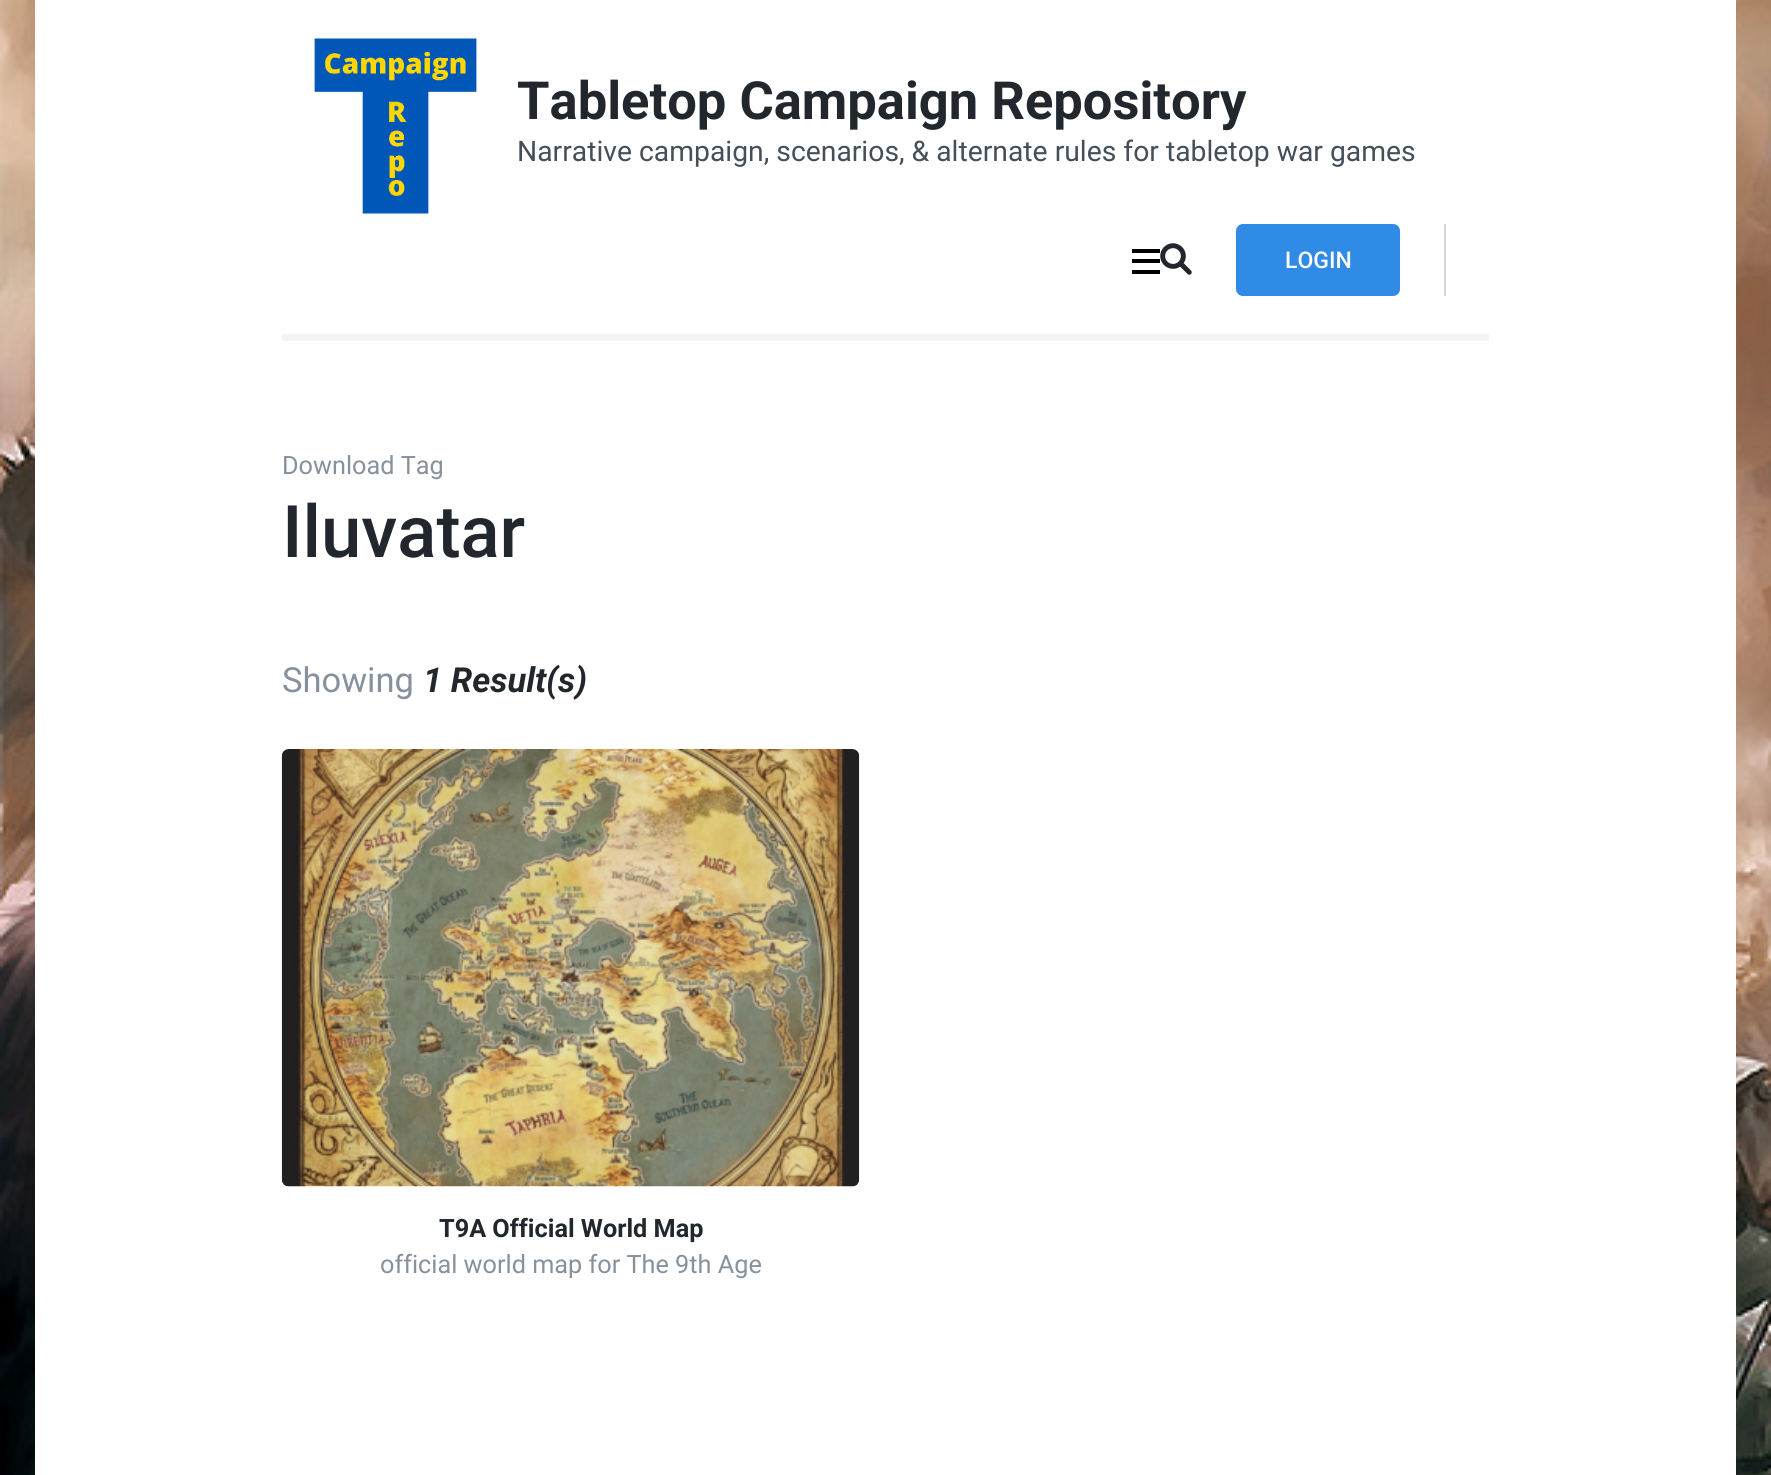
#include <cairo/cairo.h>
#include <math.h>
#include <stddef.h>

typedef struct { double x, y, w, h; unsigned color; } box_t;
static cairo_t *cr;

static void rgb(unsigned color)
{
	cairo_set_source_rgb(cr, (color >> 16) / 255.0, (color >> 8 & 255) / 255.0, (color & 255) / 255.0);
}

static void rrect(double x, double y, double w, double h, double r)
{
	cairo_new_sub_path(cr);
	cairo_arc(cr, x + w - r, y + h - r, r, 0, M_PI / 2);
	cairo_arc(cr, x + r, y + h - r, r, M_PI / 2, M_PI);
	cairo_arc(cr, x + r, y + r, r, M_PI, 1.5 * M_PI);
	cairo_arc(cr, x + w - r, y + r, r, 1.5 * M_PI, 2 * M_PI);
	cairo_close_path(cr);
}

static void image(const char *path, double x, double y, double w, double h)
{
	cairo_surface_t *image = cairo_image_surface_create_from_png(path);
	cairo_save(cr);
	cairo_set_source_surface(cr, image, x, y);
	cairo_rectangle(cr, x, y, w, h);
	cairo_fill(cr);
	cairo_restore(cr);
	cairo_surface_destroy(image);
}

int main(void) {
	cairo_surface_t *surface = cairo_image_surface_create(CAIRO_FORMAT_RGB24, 1771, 1475);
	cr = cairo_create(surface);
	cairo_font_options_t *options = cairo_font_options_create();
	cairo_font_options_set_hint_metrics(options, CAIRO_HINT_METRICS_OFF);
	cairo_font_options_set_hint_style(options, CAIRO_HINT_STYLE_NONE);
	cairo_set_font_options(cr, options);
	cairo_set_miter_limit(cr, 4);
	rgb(0xffffff);
	cairo_paint(cr);
	image("img/1.png", 0, 0, 1771, 1475);
	rgb(0xffffff);
	cairo_rectangle(cr, 35, 0, 1701, 1475);
	cairo_fill(cr);
	rgb(0xf4f4f4);
	cairo_rectangle(cr, 282, 334, 1207, 7);
	cairo_fill(cr);
	image("img/2.png", 314, 38, 163, 176);
	{
		static const box_t items[] = {
			{1132, 249, 28, 4, 0x000000},
			{1132, 259, 28, 4, 0x000000},
			{1132, 270, 28, 4, 0x000000},
			{1444, 224, 2, 72, 0xd3d4d5},
		};
		for (size_t i = 0; i < sizeof items / sizeof *items; i++) {
			rgb(items[i].color);
			cairo_rectangle(cr, items[i].x, items[i].y, items[i].w, items[i].h);
			cairo_fill(cr);
		}
	}
	image("img/3.png", 1160, 243, 32, 32);
	rgb(0x2f8be6);
	rrect(1237, 225, 162, 70, 6);
	cairo_fill_preserve(cr);
	cairo_stroke(cr);
	image("img/4.png", 281, 749, 579, 438);
	cairo_select_font_face(cr, "Roboto", CAIRO_FONT_SLANT_NORMAL, CAIRO_FONT_WEIGHT_BOLD);
	cairo_set_font_size(cr, 52.5);
	rgb(0x21272c);
	cairo_move_to(cr, 517, 119);
	cairo_show_text(cr, "Tabletop Campaign Repository");
	cairo_select_font_face(cr, "Roboto", CAIRO_FONT_SLANT_NORMAL, CAIRO_FONT_WEIGHT_NORMAL);
	cairo_set_font_size(cr, 28.3);
	rgb(0x454f59);
	cairo_move_to(cr, 517, 161);
	cairo_show_text(cr, "Narrative campaign, scenarios, & alternate rules for tabletop war games");
	cairo_select_font_face(cr, "Roboto Medium", CAIRO_FONT_SLANT_NORMAL, CAIRO_FONT_WEIGHT_NORMAL);
	cairo_set_font_size(cr, 23);
	rgb(0xffffff);
	cairo_move_to(cr, 1285, 268);
	cairo_show_text(cr, "LOGIN");
	cairo_select_font_face(cr, "Roboto", CAIRO_FONT_SLANT_NORMAL, CAIRO_FONT_WEIGHT_NORMAL);
	cairo_set_font_size(cr, 25.25);
	rgb(0x86919d);
	cairo_move_to(cr, 282, 474);
	cairo_show_text(cr, "Download Tag");
	cairo_select_font_face(cr, "Roboto Medium", CAIRO_FONT_SLANT_NORMAL, CAIRO_FONT_WEIGHT_NORMAL);
	cairo_set_font_size(cr, 72.5);
	rgb(0x21272c);
	cairo_move_to(cr, 282, 557);
	cairo_show_text(cr, "Iluvatar");
	cairo_select_font_face(cr, "Roboto", CAIRO_FONT_SLANT_NORMAL, CAIRO_FONT_WEIGHT_NORMAL);
	cairo_set_font_size(cr, 34.5);
	rgb(0x86919d);
	cairo_move_to(cr, 282, 692);
	cairo_show_text(cr, "Showing");
	cairo_select_font_face(cr, "Roboto", CAIRO_FONT_SLANT_ITALIC, CAIRO_FONT_WEIGHT_BOLD);
	rgb(0x21272c);
	cairo_move_to(cr, 423, 692);
	cairo_show_text(cr, "1 Result(s)");
	cairo_select_font_face(cr, "Roboto", CAIRO_FONT_SLANT_NORMAL, CAIRO_FONT_WEIGHT_BOLD);
	cairo_set_font_size(cr, 25.25);
	cairo_move_to(cr, 439, 1237);
	cairo_show_text(cr, "T9A Official World Map");
	cairo_select_font_face(cr, "Roboto", CAIRO_FONT_SLANT_NORMAL, CAIRO_FONT_WEIGHT_NORMAL);
	rgb(0x86919d);
	cairo_move_to(cr, 380, 1273);
	cairo_show_text(cr, "official world map for The 9th Age");
	cairo_surface_write_to_png(surface, "page.png");
	cairo_font_options_destroy(options);
	cairo_destroy(cr);
	cairo_surface_destroy(surface);
	return 0;
}
